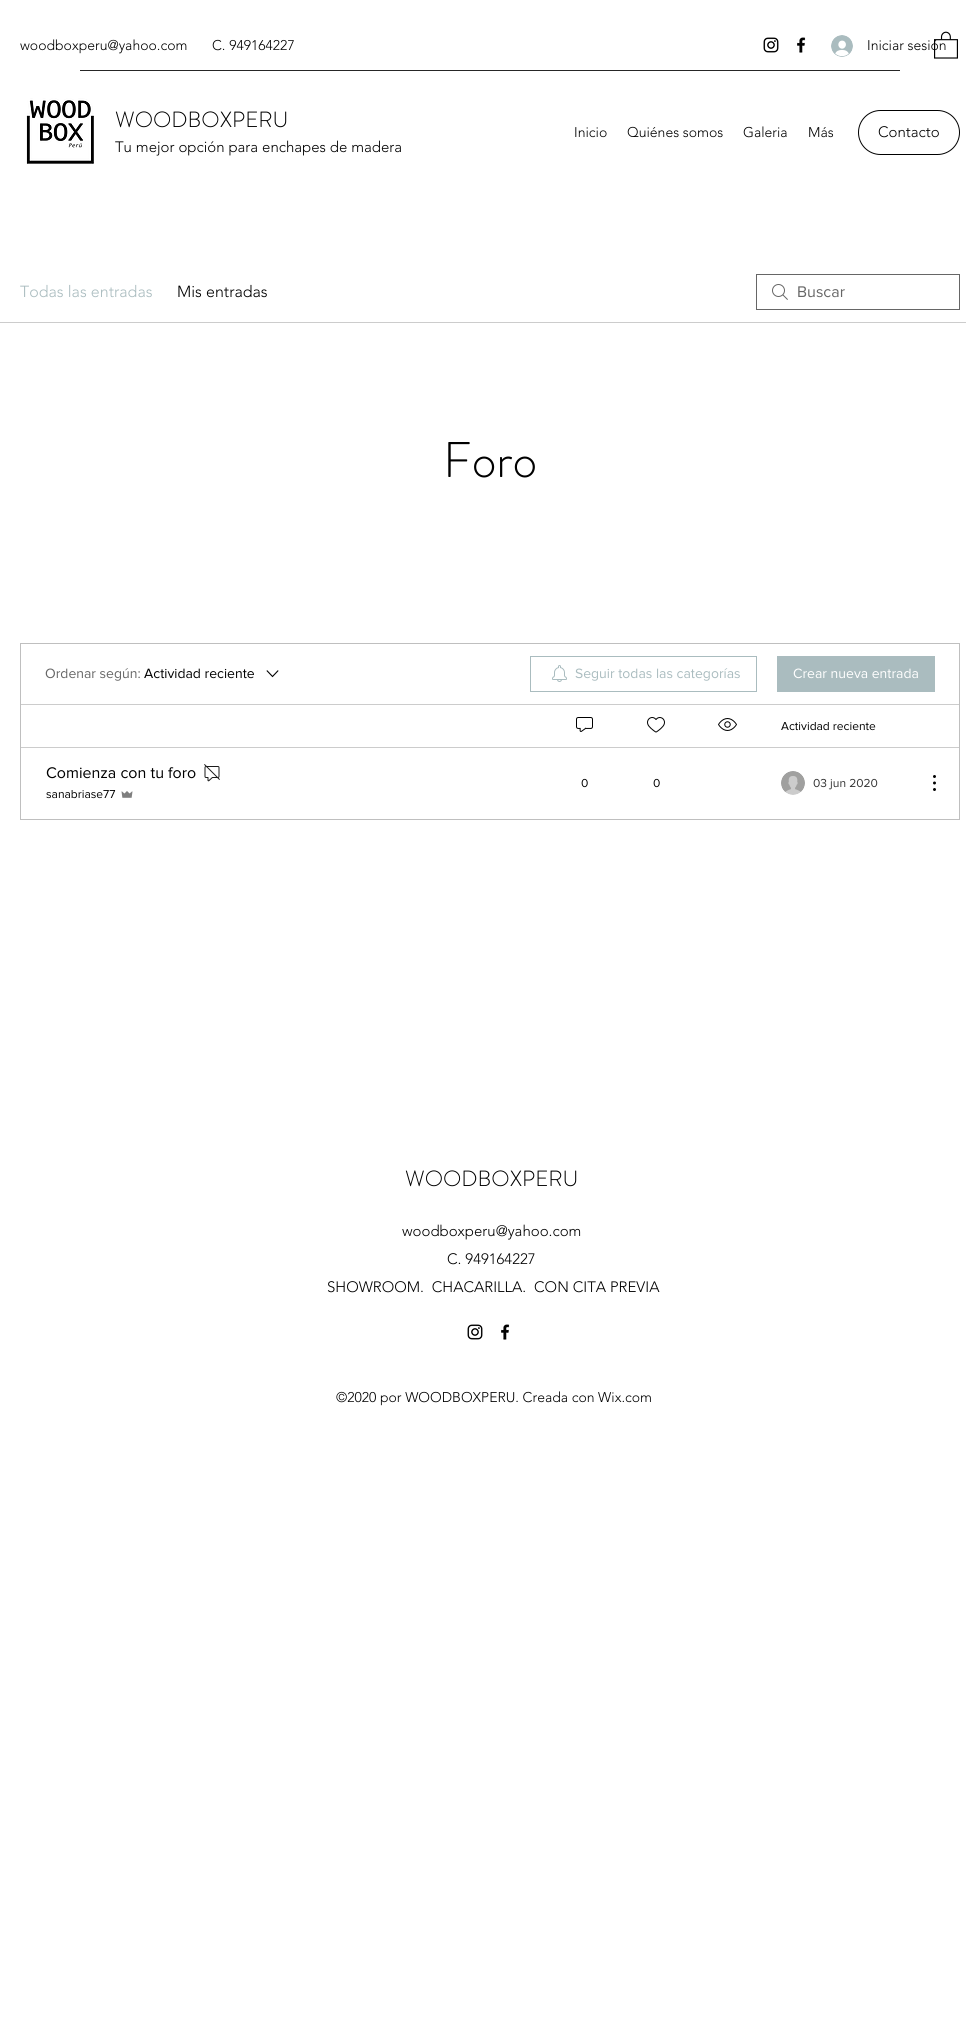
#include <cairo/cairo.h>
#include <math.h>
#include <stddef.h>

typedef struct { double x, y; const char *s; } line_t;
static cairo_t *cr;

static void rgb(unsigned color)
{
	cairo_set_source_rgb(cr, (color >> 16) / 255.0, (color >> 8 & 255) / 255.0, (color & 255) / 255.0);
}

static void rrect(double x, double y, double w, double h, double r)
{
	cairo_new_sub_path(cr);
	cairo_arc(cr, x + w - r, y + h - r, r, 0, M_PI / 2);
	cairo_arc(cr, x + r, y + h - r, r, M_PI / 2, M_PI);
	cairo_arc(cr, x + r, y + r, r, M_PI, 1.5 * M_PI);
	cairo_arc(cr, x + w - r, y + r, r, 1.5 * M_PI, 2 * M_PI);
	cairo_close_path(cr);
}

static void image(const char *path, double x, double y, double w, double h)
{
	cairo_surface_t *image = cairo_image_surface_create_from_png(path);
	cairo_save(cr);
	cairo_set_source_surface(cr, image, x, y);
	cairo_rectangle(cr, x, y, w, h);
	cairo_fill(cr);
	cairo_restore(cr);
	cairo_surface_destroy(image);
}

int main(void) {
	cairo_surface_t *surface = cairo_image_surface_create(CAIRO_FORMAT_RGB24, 966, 2023);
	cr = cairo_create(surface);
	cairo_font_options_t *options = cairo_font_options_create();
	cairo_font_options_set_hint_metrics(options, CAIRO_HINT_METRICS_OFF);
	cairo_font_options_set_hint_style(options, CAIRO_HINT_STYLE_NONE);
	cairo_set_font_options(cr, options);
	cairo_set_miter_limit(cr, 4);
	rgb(0xffffff);
	cairo_paint(cr);
	image("img/1.png", 763, 37, 16, 16);
	image("img/2.png", 797, 37, 9, 16);
	image("img/4.png", 831, 35, 22, 22);
	rgb(0x262626);
	cairo_rectangle(cr, 80, 70, 820, 1);
	cairo_fill(cr);
	image("img/5.png", 26, 98, 68, 66);
	rrect(858.5, 110.5, 101, 44, 22);
	rgb(0x000000);
	cairo_set_line_width(cr, 1);
	cairo_stroke(cr);
	rgb(0xcccccc);
	cairo_rectangle(cr, 0, 322, 966, 1);
	cairo_fill(cr);
	image("img/6.png", 772, 284, 16, 16);
	cairo_rectangle(cr, 756.5, 274.5, 203, 35);
	rgb(0x666666);
	cairo_stroke(cr);
	cairo_rectangle(cr, 20.5, 643.5, 939, 176);
	rgb(0xbfbfbf);
	cairo_stroke(cr);
	image("img/7.png", 266, 670, 13, 8);
	cairo_rectangle(cr, 530.5, 656.5, 226, 35);
	rgb(0xaabcbf);
	cairo_stroke(cr);
	image("img/8.png", 552, 665, 15, 17);
	cairo_rectangle(cr, 777, 656, 158, 36);
	cairo_fill(cr);
	rgb(0xcccccc);
	cairo_rectangle(cr, 21, 704, 938, 1);
	cairo_fill(cr);
	image("img/9.png", 576, 717, 17, 15);
	image("img/10.png", 647, 717, 18, 16);
	image("img/11.png", 718, 718, 19, 13);
	cairo_rectangle(cr, 21, 747, 938, 1);
	cairo_fill(cr);
	image("img/12.png", 204, 764, 16, 18);
	image("img/13.png", 121, 791, 12, 7);
	image("img/14.png", 781, 771, 24, 24);
	image("img/15.png", 933, 775, 3, 16);
	image("img/1.png", 467, 1324, 16, 16);
	image("img/2.png", 501, 1324, 9, 16);
	cairo_select_font_face(cr, "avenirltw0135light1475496 Light", CAIRO_FONT_SLANT_NORMAL, CAIRO_FONT_WEIGHT_NORMAL);
	cairo_set_font_size(cr, 14);
	rgb(0x000000);
	{
		static const line_t items[] = {
			{20, 50, "woodboxperu@yahoo.com"},
			{212, 50, "C. 949164227"},
			{867, 50, "Iniciar sesión"},
		};
		for (size_t i = 0; i < sizeof items / sizeof *items; i++) {
			cairo_move_to(cr, items[i].x, items[i].y);
			cairo_show_text(cr, items[i].s);
		}
	}
	image("img/3.png", 934, 31, 24, 28);
	cairo_select_font_face(cr, "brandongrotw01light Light", CAIRO_FONT_SLANT_NORMAL, CAIRO_FONT_WEIGHT_NORMAL);
	cairo_set_font_size(cr, 22);
	cairo_move_to(cr, 115, 127);
	cairo_show_text(cr, "WOODBOXPERU");
	cairo_select_font_face(cr, "avenirltw0135light1475496 Light", CAIRO_FONT_SLANT_NORMAL, CAIRO_FONT_WEIGHT_NORMAL);
	cairo_set_font_size(cr, 15);
	cairo_move_to(cr, 115, 152);
	cairo_show_text(cr, "Tu mejor opción para enchapes de madera");
	cairo_set_font_size(cr, 14);
	{
		static const line_t items[] = {
			{574, 137, "Inicio"},
			{627, 137, "Quiénes somos"},
			{743, 137, "Galeria"},
			{808, 137, "Más"},
		};
		for (size_t i = 0; i < sizeof items / sizeof *items; i++) {
			cairo_move_to(cr, items[i].x, items[i].y);
			cairo_show_text(cr, items[i].s);
		}
	}
	cairo_set_font_size(cr, 15);
	cairo_move_to(cr, 878, 137);
	cairo_show_text(cr, "Contacto");
	cairo_set_font_size(cr, 16);
	rgb(0xaabcbf);
	cairo_move_to(cr, 20, 297);
	cairo_show_text(cr, "Todas las entradas");
	rgb(0x000000);
	cairo_move_to(cr, 177, 297);
	cairo_show_text(cr, "Mis entradas");
	cairo_select_font_face(cr, "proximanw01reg", CAIRO_FONT_SLANT_NORMAL, CAIRO_FONT_WEIGHT_NORMAL);
	rgb(0x666666);
	cairo_move_to(cr, 797, 297);
	cairo_show_text(cr, "Buscar");
	cairo_select_font_face(cr, "brandongrotw01light Light", CAIRO_FONT_SLANT_NORMAL, CAIRO_FONT_WEIGHT_NORMAL);
	cairo_set_font_size(cr, 50);
	rgb(0x000000);
	cairo_move_to(cr, 443, 477);
	cairo_show_text(cr, "Foro");
	cairo_select_font_face(cr, "proximanw01reg", CAIRO_FONT_SLANT_NORMAL, CAIRO_FONT_WEIGHT_NORMAL);
	cairo_set_font_size(cr, 14);
	rgb(0x666666);
	cairo_move_to(cr, 45, 678);
	cairo_show_text(cr, "Ordenar según:");
	rgb(0x000000);
	cairo_move_to(cr, 144, 678);
	cairo_show_text(cr, "Actividad reciente");
	rgb(0xaabcbf);
	cairo_move_to(cr, 575, 678);
	cairo_show_text(cr, "Seguir todas las categorías");
	rgb(0xffffff);
	cairo_move_to(cr, 793, 678);
	cairo_show_text(cr, "Crear nueva entrada");
	cairo_set_font_size(cr, 12);
	rgb(0x000000);
	cairo_move_to(cr, 781, 730);
	cairo_show_text(cr, "Actividad reciente");
	cairo_set_font_size(cr, 16);
	cairo_move_to(cr, 46, 778);
	cairo_show_text(cr, "Comienza con tu foro");
	cairo_set_font_size(cr, 12);
	{
		static const line_t items[] = {
			{46, 798, "sanabriase77"},
			{581, 787, "0"},
			{653, 787, "0"},
		};
		for (size_t i = 0; i < sizeof items / sizeof *items; i++) {
			cairo_move_to(cr, items[i].x, items[i].y);
			cairo_show_text(cr, items[i].s);
		}
	}
	rgb(0x333333);
	cairo_move_to(cr, 813, 787);
	cairo_show_text(cr, "03 jun 2020");
	cairo_select_font_face(cr, "brandongrotw01light Light", CAIRO_FONT_SLANT_NORMAL, CAIRO_FONT_WEIGHT_NORMAL);
	cairo_set_font_size(cr, 22);
	rgb(0x000000);
	cairo_move_to(cr, 405, 1186);
	cairo_show_text(cr, "WOODBOXPERU");
	cairo_select_font_face(cr, "avenirltw0135light1475496 Light", CAIRO_FONT_SLANT_NORMAL, CAIRO_FONT_WEIGHT_NORMAL);
	cairo_set_font_size(cr, 15);
	{
		static const line_t items[] = {
			{402, 1236, "woodboxperu@yahoo.com"},
			{447, 1264, "C. 949164227"},
			{327, 1292, "SHOWROOM.  CHACARILLA.  CON CITA PREVIA"},
		};
		for (size_t i = 0; i < sizeof items / sizeof *items; i++) {
			cairo_move_to(cr, items[i].x, items[i].y);
			cairo_show_text(cr, items[i].s);
		}
	}
	cairo_set_font_size(cr, 14);
	cairo_move_to(cr, 336, 1402);
	cairo_show_text(cr, "©2020 por WOODBOXPERU. Creada con Wix.com");
	cairo_surface_write_to_png(surface, "page.png");
	cairo_font_options_destroy(options);
	cairo_destroy(cr);
	cairo_surface_destroy(surface);
	return 0;
}
